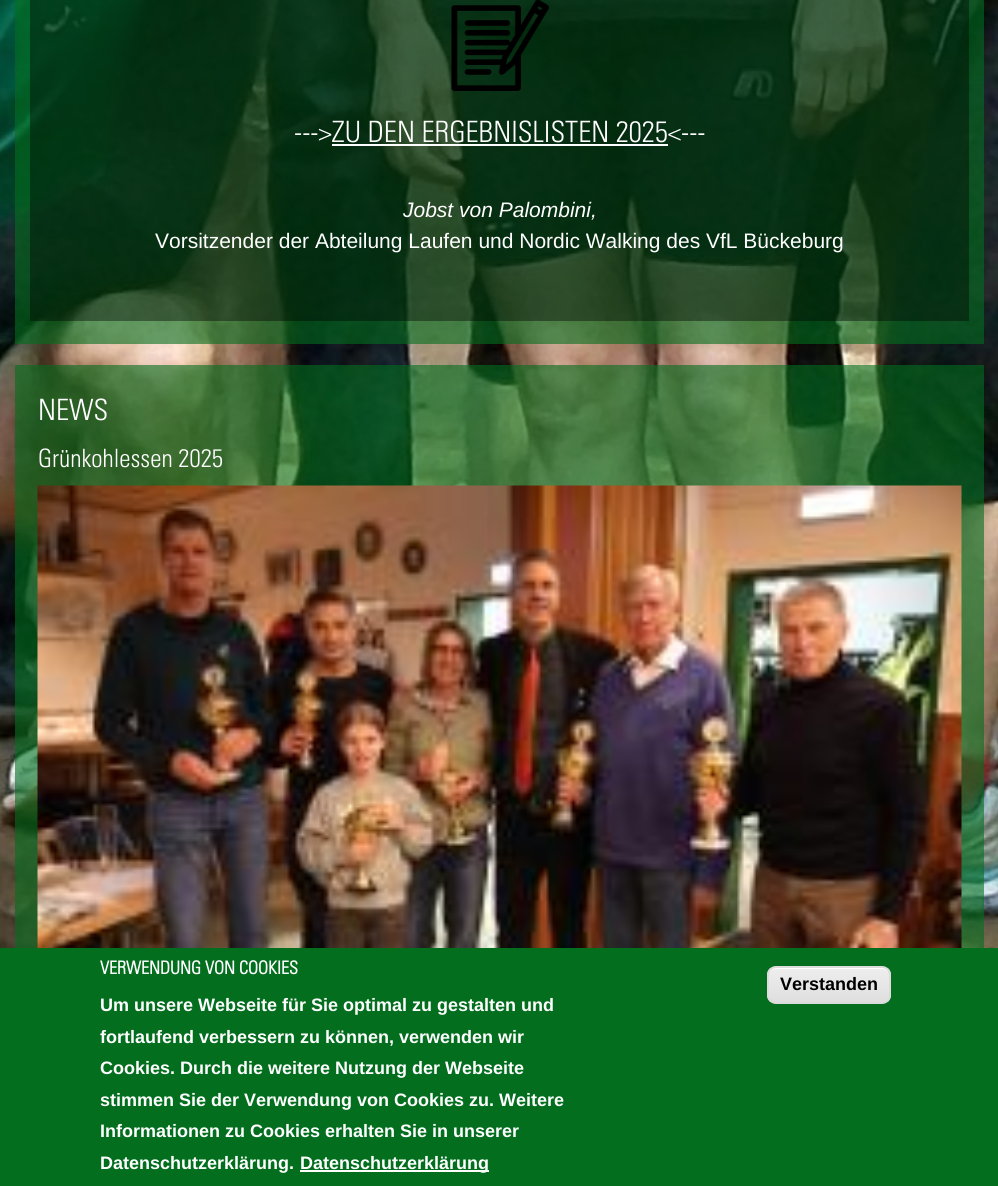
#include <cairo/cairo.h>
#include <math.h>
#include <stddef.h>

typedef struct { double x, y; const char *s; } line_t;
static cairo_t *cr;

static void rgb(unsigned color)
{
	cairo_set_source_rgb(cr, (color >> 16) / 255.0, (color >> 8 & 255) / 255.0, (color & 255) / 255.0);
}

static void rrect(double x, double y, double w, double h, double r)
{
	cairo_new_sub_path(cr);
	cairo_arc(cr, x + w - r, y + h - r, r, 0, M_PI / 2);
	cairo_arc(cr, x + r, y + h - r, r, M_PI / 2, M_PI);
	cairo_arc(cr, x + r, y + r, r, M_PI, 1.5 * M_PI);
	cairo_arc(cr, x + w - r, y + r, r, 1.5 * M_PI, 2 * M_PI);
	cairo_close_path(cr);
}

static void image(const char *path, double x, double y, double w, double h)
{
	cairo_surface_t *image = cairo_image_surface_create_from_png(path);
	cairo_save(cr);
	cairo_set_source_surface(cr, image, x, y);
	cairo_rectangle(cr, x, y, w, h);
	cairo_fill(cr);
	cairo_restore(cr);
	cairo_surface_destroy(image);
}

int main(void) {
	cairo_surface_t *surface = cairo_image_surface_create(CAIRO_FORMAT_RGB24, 998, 1186);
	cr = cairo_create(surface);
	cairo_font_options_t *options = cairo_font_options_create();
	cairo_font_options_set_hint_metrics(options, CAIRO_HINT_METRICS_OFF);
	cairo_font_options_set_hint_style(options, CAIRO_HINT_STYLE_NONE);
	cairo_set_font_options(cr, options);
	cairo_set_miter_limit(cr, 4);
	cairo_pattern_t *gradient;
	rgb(0xffffff);
	cairo_paint(cr);
	image("img/1.png", 0, 0, 998, 948);
	cairo_set_source_rgba(cr, 0.008, 0.431, 0.118, 0.6);
	cairo_rectangle(cr, 15, 0, 969, 344);
	cairo_fill(cr);
	cairo_set_source_rgba(cr, 0, 0, 0, 0.4);
	cairo_rectangle(cr, 30, 0, 939, 321);
	cairo_fill(cr);
	image("img/2.png", 451, 0, 98, 91);
	rgb(0xffffff);
	cairo_rectangle(cr, 332, 144, 336, 2);
	cairo_fill(cr);
	cairo_set_source_rgba(cr, 0.008, 0.431, 0.118, 0.6);
	cairo_rectangle(cr, 15, 365, 969, 583);
	cairo_fill(cr);
	image("img/3.png", 37, 485, 925, 463);
	rgb(0x026e1e);
	cairo_rectangle(cr, 0, 948, 998, 238);
	cairo_fill(cr);
	rgb(0xffffff);
	cairo_rectangle(cr, 300, 1170, 189, 2);
	cairo_fill(cr);
	cairo_save(cr);
	rrect(767, 966, 124, 38, 9);
	cairo_clip(cr);
	gradient = cairo_pattern_create_linear(829, 968, 829, 1002);
	cairo_pattern_add_color_stop_rgba(gradient, 0.05, 0.929, 0.929, 0.929, 1);
	cairo_pattern_add_color_stop_rgba(gradient, 1, 0.875, 0.875, 0.875, 1);
	cairo_set_source(cr, gradient);
	cairo_pattern_destroy(gradient);
	cairo_rectangle(cr, 767, 968, 124, 34);
	cairo_fill(cr);
	cairo_restore(cr);
	cairo_new_path(cr);
	cairo_move_to(cr, 776, 969);
	cairo_line_to(cr, 882, 969);
	cairo_curve_to(cr, 886, 969, 890, 972, 890, 976);
	cairo_curve_to(cr, 890, 972, 886, 968, 882, 968);
	cairo_line_to(cr, 776, 968);
	cairo_curve_to(cr, 772, 968, 768, 972, 768, 976);
	cairo_curve_to(cr, 768, 972, 771, 969, 776, 969);
	cairo_close_path(cr);
	cairo_fill(cr);
	rrect(768, 967, 122, 36, 8);
	rgb(0xdcdcdc);
	cairo_stroke(cr);
	cairo_select_font_face(cr, "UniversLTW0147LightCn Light", CAIRO_FONT_SLANT_NORMAL, CAIRO_FONT_WEIGHT_NORMAL);
	cairo_set_font_size(cr, 29.4);
	rgb(0xffffff);
	cairo_move_to(cr, 294, 142);
	cairo_show_text(cr, "--->ZU DEN ERGEBNISLISTEN 2025<---");
	cairo_select_font_face(cr, "Liberation Sans", CAIRO_FONT_SLANT_ITALIC, CAIRO_FONT_WEIGHT_NORMAL);
	cairo_set_font_size(cr, 21);
	cairo_move_to(cr, 403, 217);
	cairo_show_text(cr, "Jobst von Palombini,");
	cairo_select_font_face(cr, "Liberation Sans", CAIRO_FONT_SLANT_NORMAL, CAIRO_FONT_WEIGHT_NORMAL);
	cairo_move_to(cr, 155, 248);
	cairo_show_text(cr, "Vorsitzender der Abteilung Laufen und Nordic Walking des VfL Bückeburg");
	cairo_select_font_face(cr, "UniversLTW0147LightCn Light", CAIRO_FONT_SLANT_NORMAL, CAIRO_FONT_WEIGHT_NORMAL);
	cairo_set_font_size(cr, 29.4);
	cairo_move_to(cr, 38, 420);
	cairo_show_text(cr, "NEWS");
	cairo_set_font_size(cr, 25.25);
	cairo_move_to(cr, 38, 467);
	cairo_show_text(cr, "Grünkohlessen 2025");
	cairo_select_font_face(cr, "UniversLTW0147LightCn", CAIRO_FONT_SLANT_NORMAL, CAIRO_FONT_WEIGHT_BOLD);
	cairo_set_font_size(cr, 18);
	cairo_move_to(cr, 100, 974);
	cairo_show_text(cr, "VERWENDUNG VON COOKIES");
	cairo_select_font_face(cr, "Liberation Sans", CAIRO_FONT_SLANT_NORMAL, CAIRO_FONT_WEIGHT_BOLD);
	{
		static const line_t items[] = {
			{100, 1011, "Um unsere Webseite für Sie optimal zu gestalten und"},
			{100, 1043, "fortlaufend verbessern zu können, verwenden wir"},
			{100, 1074, "Cookies. Durch die weitere Nutzung der Webseite"},
			{100, 1106, "stimmen Sie der Verwendung von Cookies zu. Weitere"},
			{100, 1137, "Informationen zu Cookies erhalten Sie in unserer"},
			{100, 1169, "Datenschutzerklärung."},
			{300, 1169, "Datenschutzerklärung"},
		};
		for (size_t i = 0; i < sizeof items / sizeof *items; i++) {
			cairo_move_to(cr, items[i].x, items[i].y);
			cairo_show_text(cr, items[i].s);
		}
	}
	rgb(0x000000);
	cairo_move_to(cr, 780, 990);
	cairo_show_text(cr, "Verstanden");
	cairo_surface_write_to_png(surface, "page.png");
	cairo_font_options_destroy(options);
	cairo_destroy(cr);
	cairo_surface_destroy(surface);
	return 0;
}
